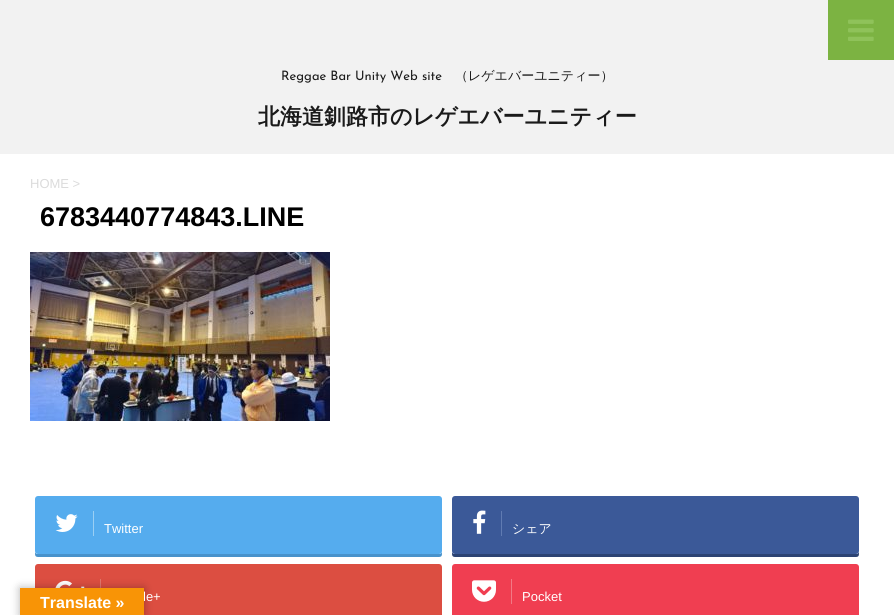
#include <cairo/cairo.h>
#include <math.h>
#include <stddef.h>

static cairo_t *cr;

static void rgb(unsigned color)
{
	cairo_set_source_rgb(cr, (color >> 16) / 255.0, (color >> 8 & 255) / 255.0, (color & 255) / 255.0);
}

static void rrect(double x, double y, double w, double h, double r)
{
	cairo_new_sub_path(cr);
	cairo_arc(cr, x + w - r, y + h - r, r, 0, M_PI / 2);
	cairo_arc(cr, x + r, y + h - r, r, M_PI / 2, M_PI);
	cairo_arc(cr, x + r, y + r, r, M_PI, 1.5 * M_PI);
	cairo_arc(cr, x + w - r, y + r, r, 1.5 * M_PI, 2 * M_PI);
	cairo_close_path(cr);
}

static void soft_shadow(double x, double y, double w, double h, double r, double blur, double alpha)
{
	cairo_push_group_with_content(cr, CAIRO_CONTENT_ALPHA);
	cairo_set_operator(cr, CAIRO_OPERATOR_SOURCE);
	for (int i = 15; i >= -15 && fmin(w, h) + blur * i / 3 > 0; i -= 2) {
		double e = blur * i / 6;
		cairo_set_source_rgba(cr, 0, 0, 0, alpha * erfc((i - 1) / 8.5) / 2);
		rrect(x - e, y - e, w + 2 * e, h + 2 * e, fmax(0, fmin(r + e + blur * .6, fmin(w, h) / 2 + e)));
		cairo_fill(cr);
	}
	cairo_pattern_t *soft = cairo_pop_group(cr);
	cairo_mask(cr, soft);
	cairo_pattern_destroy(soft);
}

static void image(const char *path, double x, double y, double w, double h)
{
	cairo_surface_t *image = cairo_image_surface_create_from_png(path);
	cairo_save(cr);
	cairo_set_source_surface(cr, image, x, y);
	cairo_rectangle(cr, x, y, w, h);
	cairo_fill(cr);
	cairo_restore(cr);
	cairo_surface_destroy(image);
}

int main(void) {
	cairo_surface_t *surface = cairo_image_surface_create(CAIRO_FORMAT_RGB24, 894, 615);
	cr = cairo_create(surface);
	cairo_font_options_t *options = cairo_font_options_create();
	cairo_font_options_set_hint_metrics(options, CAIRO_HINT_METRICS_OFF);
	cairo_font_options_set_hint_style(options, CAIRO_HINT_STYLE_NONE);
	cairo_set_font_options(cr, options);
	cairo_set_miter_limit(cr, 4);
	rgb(0xf2f2f2);
	cairo_paint(cr);
	rgb(0x7cb342);
	cairo_rectangle(cr, 828, 0, 66, 60);
	cairo_fill(cr);
	image("img/1.png", 848, 19, 26, 22);
	rgb(0xffffff);
	cairo_rectangle(cr, 0, 154, 894, 461);
	cairo_fill(cr);
	image("img/2.png", 30, 252, 300, 169);
	rgb(0x4892cb);
	cairo_new_path(cr);
	cairo_move_to(cr, 35, 551);
	cairo_line_to(cr, 35, 554);
	cairo_curve_to(cr, 35, 556, 36, 557, 38, 557);
	cairo_line_to(cr, 439, 557);
	cairo_curve_to(cr, 441, 557, 442, 556, 442, 554);
	cairo_line_to(cr, 442, 551);
	cairo_curve_to(cr, 442, 553, 441, 554, 439, 554);
	cairo_line_to(cr, 38, 554);
	cairo_curve_to(cr, 36, 554, 35, 553, 35, 551);
	cairo_close_path(cr);
	cairo_fill(cr);
	rgb(0x55acee);
	rrect(35, 496, 407, 58, 3);
	cairo_fill(cr);
	rgb(0x9acff4);
	cairo_rectangle(cr, 93, 511, 1, 25);
	cairo_fill(cr);
	image("img/3.png", 55, 514, 23, 18);
	rgb(0x2c4373);
	cairo_new_path(cr);
	cairo_move_to(cr, 452, 551);
	cairo_line_to(cr, 452, 554);
	cairo_curve_to(cr, 452, 556, 453, 557, 455, 557);
	cairo_line_to(cr, 856, 557);
	cairo_curve_to(cr, 858, 557, 859, 556, 859, 554);
	cairo_line_to(cr, 859, 551);
	cairo_curve_to(cr, 859, 553, 858, 554, 856, 554);
	cairo_line_to(cr, 455, 554);
	cairo_curve_to(cr, 453, 554, 452, 553, 452, 551);
	cairo_close_path(cr);
	cairo_fill(cr);
	rgb(0x3b5998);
	rrect(452, 496, 407, 58, 3);
	cairo_fill(cr);
	rgb(0x607bb2);
	cairo_rectangle(cr, 501, 511, 1, 25);
	cairo_fill(cr);
	image("img/4.png", 473, 510, 13, 24);
	rgb(0xdc4e41);
	rrect(35, 564, 407, 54, 3);
	cairo_fill(cr);
	rgb(0xe0776d);
	cairo_rectangle(cr, 100, 579, 1, 9);
	cairo_fill(cr);
	image("img/5.png", 55, 580, 30, 8);
	rgb(0xf03e51);
	rrect(452, 564, 407, 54, 3);
	cairo_fill(cr);
	rgb(0xf27985);
	cairo_rectangle(cr, 511, 579, 1, 25);
	cairo_fill(cr);
	image("img/6.png", 472, 580, 24, 22);
	rgb(0x000000);
	soft_shadow(20, 588, 124, 27, 0, 4.5, 0.3);
	cairo_select_font_face(cr, "Josefin Sans", CAIRO_FONT_SLANT_NORMAL, CAIRO_FONT_WEIGHT_NORMAL);
	cairo_set_font_size(cr, 13);
	rgb(0x1a1a1a);
	cairo_move_to(cr, 281, 80);
	cairo_show_text(cr, "Reggae Bar Unity Web site");
	cairo_select_font_face(cr, "WenQuanYi Zen Hei Medium", CAIRO_FONT_SLANT_NORMAL, CAIRO_FONT_WEIGHT_NORMAL);
	cairo_move_to(cr, 455, 80);
	cairo_show_text(cr, "（レゲエバーユニティー）");
	cairo_select_font_face(cr, "WenQuanYi Zen Hei", CAIRO_FONT_SLANT_NORMAL, CAIRO_FONT_WEIGHT_BOLD);
	cairo_set_font_size(cr, 22);
	cairo_move_to(cr, 258, 124);
	cairo_show_text(cr, "北海道釧路市のレゲエバーユニティー");
	cairo_select_font_face(cr, "Liberation Sans", CAIRO_FONT_SLANT_NORMAL, CAIRO_FONT_WEIGHT_NORMAL);
	cairo_set_font_size(cr, 13);
	rgb(0xdbdbdb);
	cairo_move_to(cr, 30, 188);
	cairo_show_text(cr, "HOME >");
	cairo_select_font_face(cr, "Liberation Sans", CAIRO_FONT_SLANT_NORMAL, CAIRO_FONT_WEIGHT_BOLD);
	cairo_set_font_size(cr, 27);
	rgb(0x000000);
	cairo_move_to(cr, 40, 226);
	cairo_show_text(cr, "6783440774843.LINE");
	cairo_select_font_face(cr, "Liberation Sans", CAIRO_FONT_SLANT_NORMAL, CAIRO_FONT_WEIGHT_NORMAL);
	cairo_set_font_size(cr, 13);
	rgb(0xffffff);
	cairo_move_to(cr, 104, 533);
	cairo_show_text(cr, "Twitter");
	cairo_select_font_face(cr, "WenQuanYi Zen Hei Medium", CAIRO_FONT_SLANT_NORMAL, CAIRO_FONT_WEIGHT_NORMAL);
	cairo_move_to(cr, 512, 533);
	cairo_show_text(cr, "シェア");
	cairo_select_font_face(cr, "Liberation Sans", CAIRO_FONT_SLANT_NORMAL, CAIRO_FONT_WEIGHT_NORMAL);
	cairo_move_to(cr, 143, 601);
	cairo_show_text(cr, "le+");
	cairo_move_to(cr, 522, 601);
	cairo_show_text(cr, "Pocket");
	rgb(0xf89406);
	cairo_rectangle(cr, 20, 588, 124, 27);
	cairo_fill(cr);
	cairo_select_font_face(cr, "Liberation Sans", CAIRO_FONT_SLANT_NORMAL, CAIRO_FONT_WEIGHT_BOLD);
	cairo_set_font_size(cr, 16);
	rgb(0xffffff);
	cairo_move_to(cr, 40, 608);
	cairo_show_text(cr, "Translate »");
	cairo_surface_write_to_png(surface, "page.png");
	cairo_font_options_destroy(options);
	cairo_destroy(cr);
	cairo_surface_destroy(surface);
	return 0;
}
